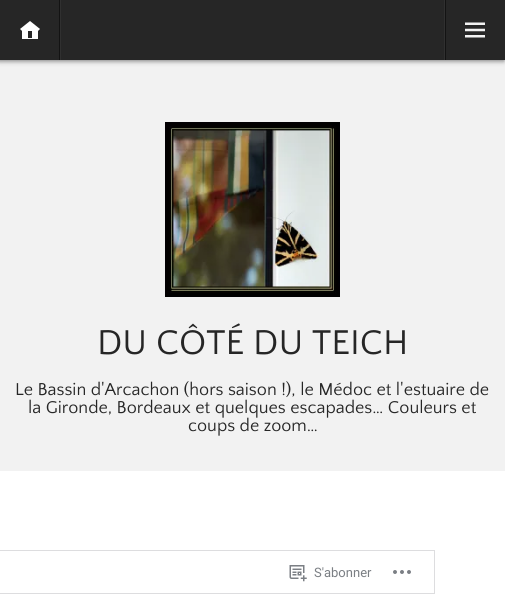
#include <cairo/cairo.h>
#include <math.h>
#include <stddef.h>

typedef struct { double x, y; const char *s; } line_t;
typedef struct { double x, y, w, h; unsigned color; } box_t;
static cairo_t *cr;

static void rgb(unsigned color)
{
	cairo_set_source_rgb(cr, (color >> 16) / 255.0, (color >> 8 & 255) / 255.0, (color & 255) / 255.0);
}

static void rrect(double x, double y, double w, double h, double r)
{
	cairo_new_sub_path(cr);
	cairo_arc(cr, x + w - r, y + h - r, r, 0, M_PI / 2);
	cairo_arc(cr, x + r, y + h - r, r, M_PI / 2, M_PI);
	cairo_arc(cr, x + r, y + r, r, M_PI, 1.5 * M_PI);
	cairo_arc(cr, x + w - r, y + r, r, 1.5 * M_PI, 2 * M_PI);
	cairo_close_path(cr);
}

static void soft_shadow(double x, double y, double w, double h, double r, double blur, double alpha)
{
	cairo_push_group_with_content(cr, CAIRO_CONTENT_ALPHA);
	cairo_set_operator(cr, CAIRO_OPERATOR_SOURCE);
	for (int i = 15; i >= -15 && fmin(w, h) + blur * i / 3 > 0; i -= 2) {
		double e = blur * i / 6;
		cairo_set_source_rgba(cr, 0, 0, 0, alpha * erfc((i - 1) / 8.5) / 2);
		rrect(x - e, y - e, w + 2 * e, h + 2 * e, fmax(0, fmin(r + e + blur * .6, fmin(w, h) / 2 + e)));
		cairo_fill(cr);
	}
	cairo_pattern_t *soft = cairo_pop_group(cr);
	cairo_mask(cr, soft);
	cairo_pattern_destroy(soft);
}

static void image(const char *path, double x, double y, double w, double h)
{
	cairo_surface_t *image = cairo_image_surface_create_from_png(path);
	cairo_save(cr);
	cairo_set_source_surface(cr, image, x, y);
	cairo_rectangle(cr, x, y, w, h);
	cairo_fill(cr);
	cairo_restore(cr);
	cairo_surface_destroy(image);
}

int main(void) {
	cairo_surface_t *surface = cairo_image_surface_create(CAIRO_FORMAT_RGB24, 505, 594);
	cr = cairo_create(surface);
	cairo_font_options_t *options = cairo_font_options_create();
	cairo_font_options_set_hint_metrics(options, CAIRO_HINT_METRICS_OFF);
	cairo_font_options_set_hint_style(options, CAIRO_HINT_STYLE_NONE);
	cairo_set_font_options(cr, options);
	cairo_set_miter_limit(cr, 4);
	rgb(0xffffff);
	cairo_paint(cr);
	rgb(0xf2f2f2);
	cairo_rectangle(cr, 0, 60, 505, 411);
	cairo_fill(cr);
	rgb(0x000000);
	soft_shadow(-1, 1, 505, 60, 0, 2.5, 0.5);
	rgb(0x262626);
	cairo_rectangle(cr, 0, 0, 505, 60);
	cairo_fill(cr);
	rgb(0x303030);
	cairo_rectangle(cr, 60, 0, 1, 60);
	cairo_fill(cr);
	image("img/1.png", 20, 21, 20, 18);
	{
		static const box_t items[] = {
			{59, 0, 1, 60, 0x131313},
			{444, 0, 1, 60, 0x303030},
			{445, 0, 1, 60, 0x131313},
		};
		for (size_t i = 0; i < sizeof items / sizeof *items; i++) {
			rgb(items[i].color);
			cairo_rectangle(cr, items[i].x, items[i].y, items[i].w, items[i].h);
			cairo_fill(cr);
		}
	}
	image("img/2.png", 465, 22, 20, 16);
	image("img/3.png", 165, 122, 175, 175);
	cairo_rectangle(cr, -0.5, 550.5, 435, 43);
	cairo_set_source_rgba(cr, 0.863, 0.863, 0.871, 0.98);
	cairo_set_line_width(cr, 1);
	cairo_stroke(cr);
	image("img/4.png", 289, 565, 18, 17);
	image("img/5.png", 393, 570, 18, 4);
	cairo_select_font_face(cr, "Quattrocento Sans", CAIRO_FONT_SLANT_NORMAL, CAIRO_FONT_WEIGHT_NORMAL);
	cairo_set_font_size(cr, 36);
	rgb(0x262626);
	cairo_move_to(cr, 97, 354);
	cairo_show_text(cr, "DU CÔTÉ DU TEICH");
	cairo_set_font_size(cr, 18);
	{
		static const line_t items[] = {
			{15, 395, "Le Bassin d'Arcachon (hors saison !), le Médoc et l'estuaire de"},
			{28, 413, "la Gironde, Bordeaux et quelques escapades… Couleurs et"},
			{188, 431, "coups de zoom…"},
		};
		for (size_t i = 0; i < sizeof items / sizeof *items; i++) {
			cairo_move_to(cr, items[i].x, items[i].y);
			cairo_show_text(cr, items[i].s);
		}
	}
	cairo_select_font_face(cr, "Roboto", CAIRO_FONT_SLANT_NORMAL, CAIRO_FONT_WEIGHT_NORMAL);
	cairo_set_font_size(cr, 13);
	rgb(0x7b7f84);
	cairo_move_to(cr, 314, 577);
	cairo_show_text(cr, "S'abonner");
	cairo_surface_write_to_png(surface, "page.png");
	cairo_font_options_destroy(options);
	cairo_destroy(cr);
	cairo_surface_destroy(surface);
	return 0;
}
